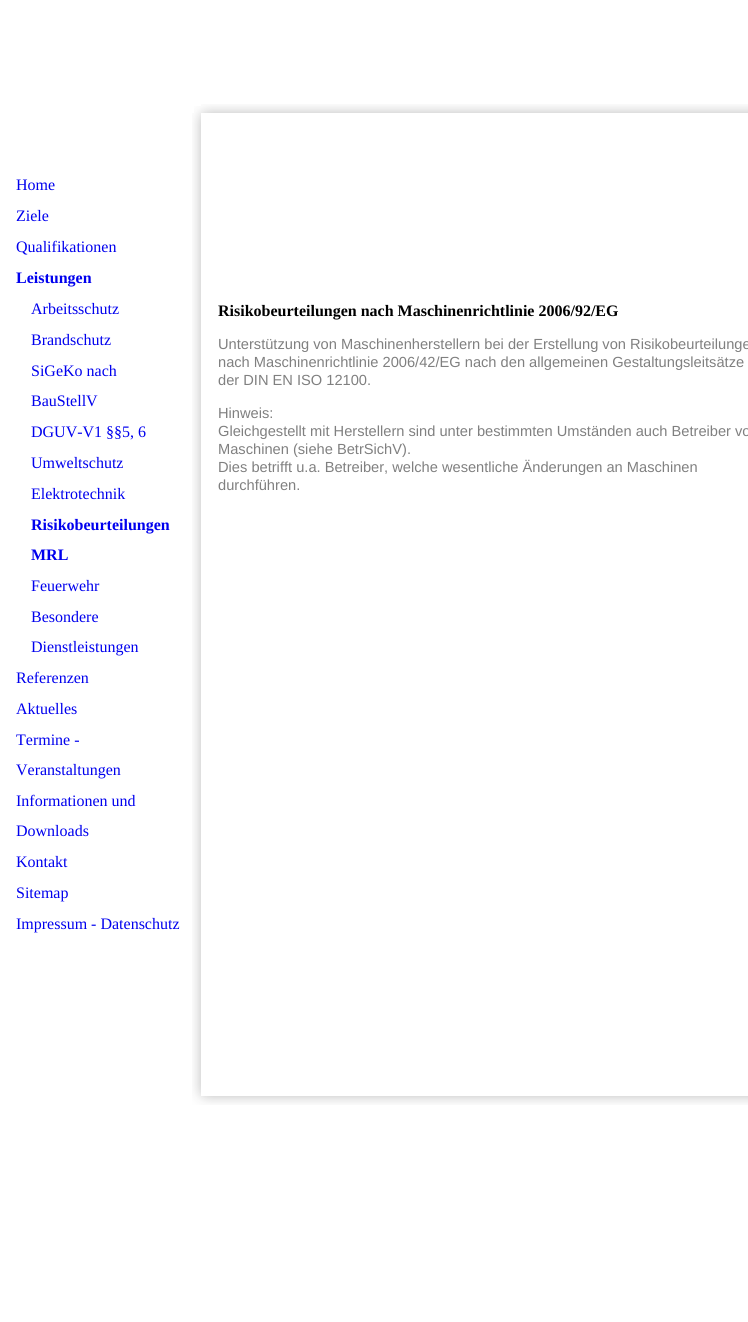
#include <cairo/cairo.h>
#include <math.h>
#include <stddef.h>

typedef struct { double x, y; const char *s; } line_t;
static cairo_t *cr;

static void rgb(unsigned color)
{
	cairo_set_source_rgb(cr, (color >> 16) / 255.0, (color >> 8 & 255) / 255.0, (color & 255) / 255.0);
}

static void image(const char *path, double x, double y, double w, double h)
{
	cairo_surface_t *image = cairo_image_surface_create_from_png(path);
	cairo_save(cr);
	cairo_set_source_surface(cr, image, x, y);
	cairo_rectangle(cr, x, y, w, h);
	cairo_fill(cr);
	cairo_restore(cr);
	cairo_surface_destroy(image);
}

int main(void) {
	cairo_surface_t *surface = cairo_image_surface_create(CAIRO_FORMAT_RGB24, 748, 1322);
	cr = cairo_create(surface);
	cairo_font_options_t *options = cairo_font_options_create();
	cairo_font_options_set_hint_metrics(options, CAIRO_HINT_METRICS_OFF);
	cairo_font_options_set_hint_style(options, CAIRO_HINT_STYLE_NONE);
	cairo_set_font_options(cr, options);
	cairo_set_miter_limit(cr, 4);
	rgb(0xffffff);
	cairo_paint(cr);
	image("img/1.png", 194, 106, 7, 7);
	image("img/2.png", 201, 104, 547, 9);
	image("img/3.png", 192, 113, 9, 966);
	image("img/4.png", 192, 1079, 556, 26);
	cairo_select_font_face(cr, "Liberation Serif", CAIRO_FONT_SLANT_NORMAL, CAIRO_FONT_WEIGHT_NORMAL);
	cairo_set_font_size(cr, 16);
	rgb(0x0000ee);
	{
		static const line_t items[] = {
			{16, 190, "Home"},
			{16, 221, "Ziele"},
			{16, 252, "Qualifikationen"},
		};
		for (size_t i = 0; i < sizeof items / sizeof *items; i++) {
			cairo_move_to(cr, items[i].x, items[i].y);
			cairo_show_text(cr, items[i].s);
		}
	}
	cairo_select_font_face(cr, "Liberation Serif", CAIRO_FONT_SLANT_NORMAL, CAIRO_FONT_WEIGHT_BOLD);
	cairo_move_to(cr, 16, 283);
	cairo_show_text(cr, "Leistungen");
	cairo_select_font_face(cr, "Liberation Serif", CAIRO_FONT_SLANT_NORMAL, CAIRO_FONT_WEIGHT_NORMAL);
	{
		static const line_t items[] = {
			{31, 314, "Arbeitsschutz"},
			{31, 345, "Brandschutz"},
			{31, 376, "SiGeKo nach"},
			{31, 406, "BauStellV"},
			{31, 437, "DGUV-V1 §§5, 6"},
			{31, 468, "Umweltschutz"},
			{31, 499, "Elektrotechnik"},
		};
		for (size_t i = 0; i < sizeof items / sizeof *items; i++) {
			cairo_move_to(cr, items[i].x, items[i].y);
			cairo_show_text(cr, items[i].s);
		}
	}
	cairo_select_font_face(cr, "Liberation Serif", CAIRO_FONT_SLANT_NORMAL, CAIRO_FONT_WEIGHT_BOLD);
	cairo_move_to(cr, 31, 530);
	cairo_show_text(cr, "Risikobeurteilungen");
	cairo_move_to(cr, 31, 560);
	cairo_show_text(cr, "MRL");
	cairo_select_font_face(cr, "Liberation Serif", CAIRO_FONT_SLANT_NORMAL, CAIRO_FONT_WEIGHT_NORMAL);
	{
		static const line_t items[] = {
			{31, 591, "Feuerwehr"},
			{31, 622, "Besondere"},
			{31, 652, "Dienstleistungen"},
			{16, 683, "Referenzen"},
			{16, 714, "Aktuelles"},
			{16, 745, "Termine -"},
			{16, 775, "Veranstaltungen"},
			{16, 806, "Informationen und"},
			{16, 836, "Downloads"},
			{16, 867, "Kontakt"},
			{16, 898, "Sitemap"},
			{16, 929, "Impressum - Datenschutz"},
		};
		for (size_t i = 0; i < sizeof items / sizeof *items; i++) {
			cairo_move_to(cr, items[i].x, items[i].y);
			cairo_show_text(cr, items[i].s);
		}
	}
	cairo_select_font_face(cr, "Liberation Serif", CAIRO_FONT_SLANT_NORMAL, CAIRO_FONT_WEIGHT_BOLD);
	rgb(0x000000);
	cairo_move_to(cr, 218, 316);
	cairo_show_text(cr, "Risikobeurteilungen nach Maschinenrichtlinie 2006/92/EG");
	cairo_select_font_face(cr, "Liberation Sans", CAIRO_FONT_SLANT_NORMAL, CAIRO_FONT_WEIGHT_NORMAL);
	cairo_set_font_size(cr, 14.65);
	rgb(0x808080);
	{
		static const line_t items[] = {
			{218, 349, "Unterstützung von Maschinenherstellern bei der Erstellung von Risikobeurteilunge"},
			{218, 367, "nach Maschinenrichtlinie 2006/42/EG nach den allgemeinen Gestaltungsleitsätze"},
			{218, 385, "der DIN EN ISO 12100."},
			{218, 418, "Hinweis:"},
			{218, 436, "Gleichgestellt mit Herstellern sind unter bestimmten Umständen auch Betreiber vo"},
			{218, 454, "Maschinen (siehe BetrSichV)."},
			{218, 472, "Dies betrifft u.a. Betreiber, welche wesentliche Änderungen an Maschinen"},
			{218, 490, "durchführen."},
		};
		for (size_t i = 0; i < sizeof items / sizeof *items; i++) {
			cairo_move_to(cr, items[i].x, items[i].y);
			cairo_show_text(cr, items[i].s);
		}
	}
	cairo_surface_write_to_png(surface, "page.png");
	cairo_font_options_destroy(options);
	cairo_destroy(cr);
	cairo_surface_destroy(surface);
	return 0;
}
